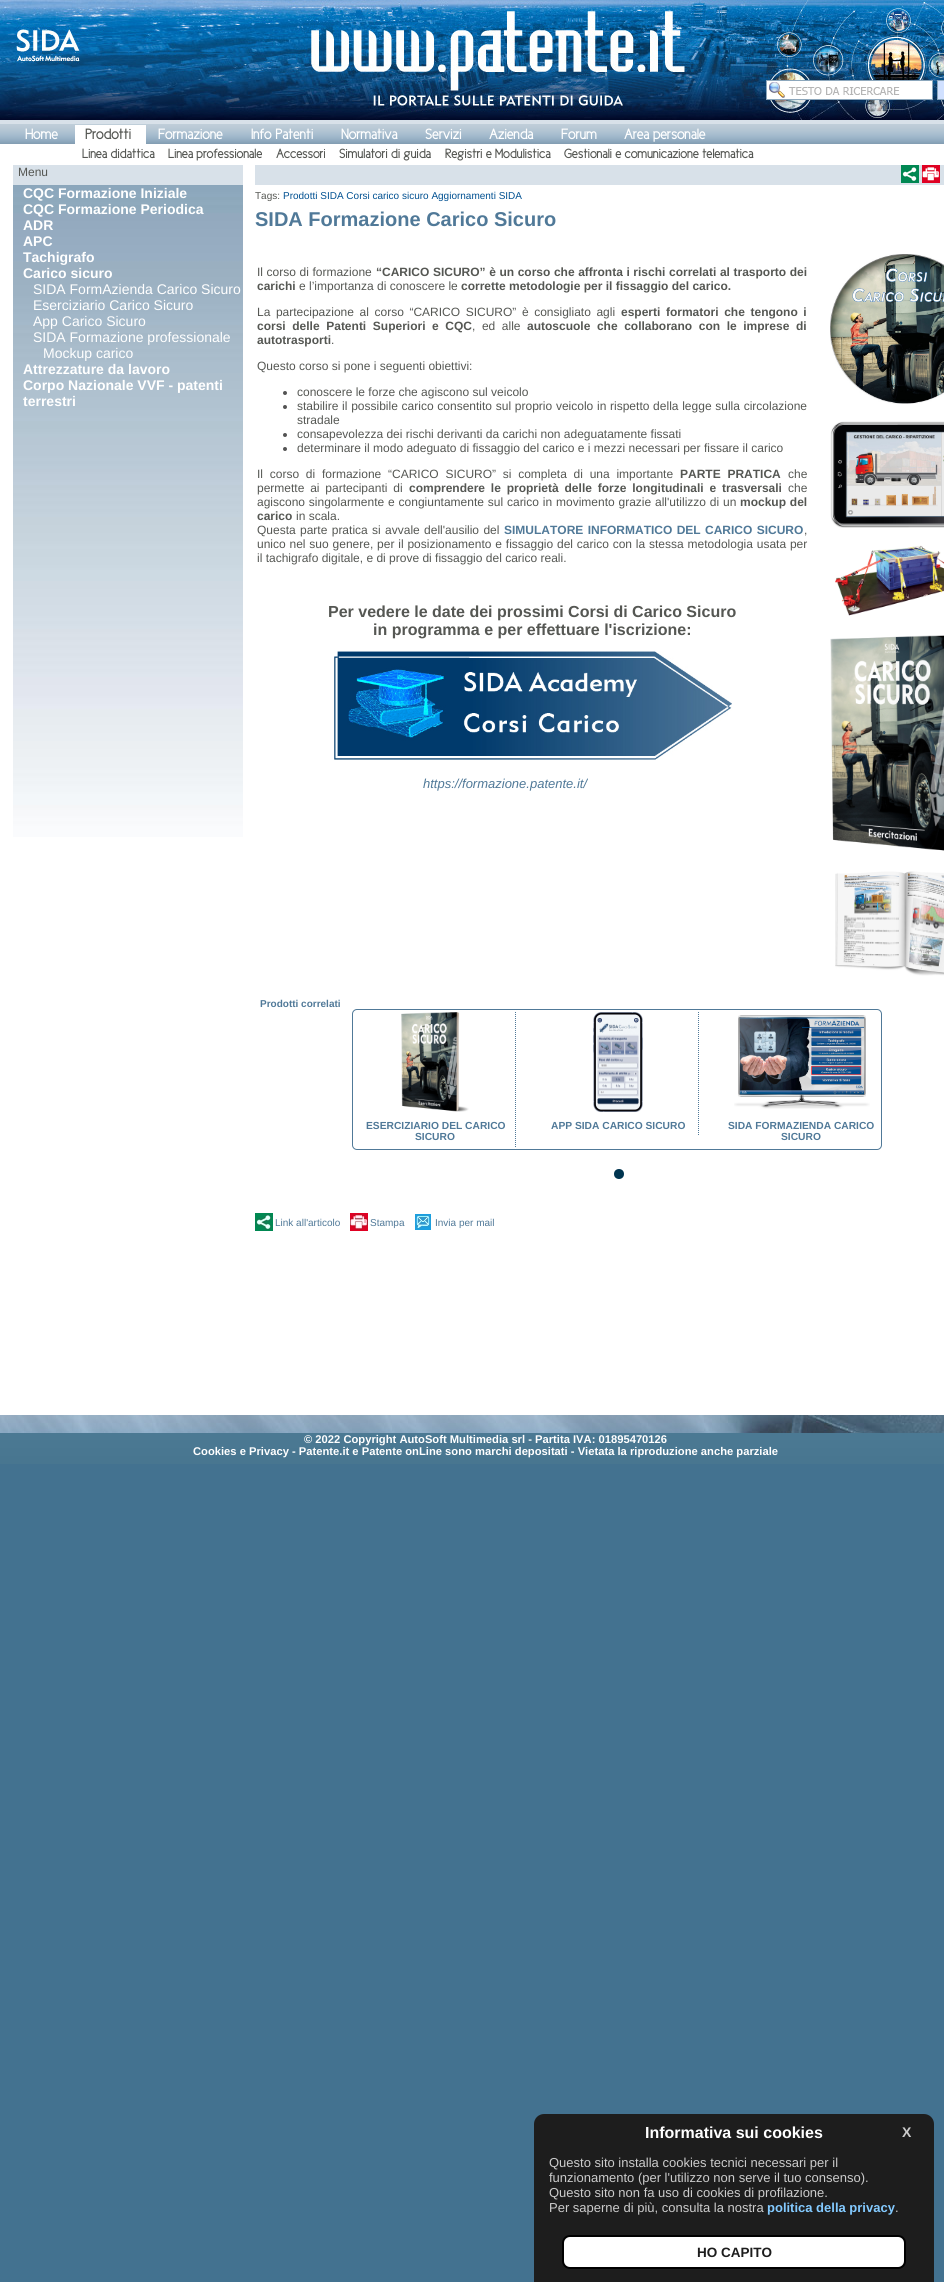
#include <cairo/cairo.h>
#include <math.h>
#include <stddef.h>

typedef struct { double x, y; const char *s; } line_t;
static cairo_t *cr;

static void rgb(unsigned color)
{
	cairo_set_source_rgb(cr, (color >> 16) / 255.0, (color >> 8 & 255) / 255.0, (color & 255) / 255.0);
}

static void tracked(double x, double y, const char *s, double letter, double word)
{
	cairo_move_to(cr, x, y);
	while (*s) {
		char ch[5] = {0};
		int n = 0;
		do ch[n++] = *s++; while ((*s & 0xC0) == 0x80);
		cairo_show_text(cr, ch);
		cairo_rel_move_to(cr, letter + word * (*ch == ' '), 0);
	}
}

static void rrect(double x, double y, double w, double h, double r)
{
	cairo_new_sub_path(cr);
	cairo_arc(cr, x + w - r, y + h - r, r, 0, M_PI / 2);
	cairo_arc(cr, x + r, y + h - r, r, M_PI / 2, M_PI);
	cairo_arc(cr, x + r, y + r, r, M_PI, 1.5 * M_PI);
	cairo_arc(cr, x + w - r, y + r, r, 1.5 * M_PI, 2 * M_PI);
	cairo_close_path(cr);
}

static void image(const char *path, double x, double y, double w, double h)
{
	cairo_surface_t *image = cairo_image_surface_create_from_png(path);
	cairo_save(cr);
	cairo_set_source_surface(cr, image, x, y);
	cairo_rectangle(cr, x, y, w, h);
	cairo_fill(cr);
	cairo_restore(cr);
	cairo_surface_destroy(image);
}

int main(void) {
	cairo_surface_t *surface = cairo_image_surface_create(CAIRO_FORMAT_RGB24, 944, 2282);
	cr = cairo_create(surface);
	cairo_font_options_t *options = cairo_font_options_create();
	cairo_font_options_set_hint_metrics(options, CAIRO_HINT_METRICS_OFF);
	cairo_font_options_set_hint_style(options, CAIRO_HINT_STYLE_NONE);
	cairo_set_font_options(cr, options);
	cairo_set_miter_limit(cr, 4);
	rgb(0x437290);
	cairo_paint(cr);
	image("img/1.png", 0, 1433, 944, 31);
	image("img/2.png", 0, 0, 944, 120);
	rgb(0xffffff);
	cairo_rectangle(cr, 767, 81, 165, 18);
	cairo_fill(cr);
	image("img/3.png", 769, 82, 131, 16);
	cairo_rectangle(cr, 766.5, 80.5, 166, 19);
	rgb(0x8ca7bc);
	cairo_set_line_width(cr, 1);
	cairo_stroke(cr);
	rgb(0xd0e0ff);
	cairo_rectangle(cr, 937.5, 80.5, 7, 19);
	cairo_fill_preserve(cr);
	rgb(0x8ca7bc);
	cairo_stroke(cr);
	rgb(0xffffff);
	cairo_rectangle(cr, 0, 144, 944, 1271);
	cairo_fill(cr);
	image("img/4.png", 0, 124, 944, 20);
	rgb(0xd8e1e9);
	cairo_rectangle(cr, 0, 120, 944, 4);
	cairo_fill(cr);
	rgb(0xffffff);
	cairo_rectangle(cr, 75, 125, 71, 19);
	cairo_fill(cr);
	image("img/5.png", 13, 185, 230, 652);
	rgb(0xd8e1e9);
	cairo_rectangle(cr, 13, 165, 230, 20);
	cairo_fill(cr);
	cairo_rectangle(cr, 255, 165, 689, 20);
	cairo_fill(cr);
	image("img/6.png", 901, 165, 18, 18);
	image("img/7.png", 922, 165, 18, 18);
	rgb(0x545454);
	cairo_arc(cr, 285, 393, 2, 0, 2 * M_PI);
	cairo_fill(cr);
	cairo_arc(cr, 285, 407, 2, 0, 2 * M_PI);
	cairo_fill(cr);
	cairo_arc(cr, 285, 435, 2, 0, 2 * M_PI);
	cairo_fill(cr);
	cairo_arc(cr, 285, 449, 2, 0, 2 * M_PI);
	cairo_fill(cr);
	image("img/8.png", 334, 651, 398, 109);
	image("img/9.png", 830, 254, 114, 150);
	image("img/10.png", 830, 421, 114, 107);
	image("img/11.png", 835, 545, 109, 71);
	image("img/12.png", 830, 635, 114, 216);
	image("img/13.png", 835, 871, 109, 105);
	rrect(352.5, 1009.5, 529, 140, 4.5);
	rgb(0x507998);
	cairo_stroke(cr);
	cairo_new_path(cr);
	cairo_move_to(cr, 515.5, 1012);
	cairo_line_to(cr, 515.5, 1147);
	cairo_set_dash(cr, (double[]){1, 1}, 2, 0);
	cairo_stroke(cr);
	image("img/14.png", 401, 1012, 68, 100);
	cairo_new_path(cr);
	cairo_move_to(cr, 698.5, 1012);
	cairo_line_to(cr, 698.5, 1136);
	cairo_stroke(cr);
	image("img/15.png", 593, 1012, 50, 100);
	image("img/16.png", 734, 1015, 136, 94);
	rgb(0x003550);
	cairo_arc(cr, 619, 1174, 5, 0, 2 * M_PI);
	cairo_fill(cr);
	image("img/17.png", 255, 1213, 18, 18);
	image("img/18.png", 350, 1213, 18, 18);
	image("img/19.png", 415, 1214, 16, 16);
	image("img/20.png", 0, 1415, 944, 18);
	rgb(0x1d1d1d);
	cairo_new_path(cr);
	cairo_move_to(cr, 544, 2114);
	cairo_line_to(cr, 924, 2114);
	cairo_curve_to(cr, 929.5, 2114, 934, 2118.5, 934, 2124);
	cairo_line_to(cr, 934, 2282);
	cairo_line_to(cr, 534, 2282);
	cairo_line_to(cr, 534, 2124);
	cairo_curve_to(cr, 534, 2118.5, 538.5, 2114, 544, 2114);
	cairo_close_path(cr);
	cairo_fill(cr);
	rgb(0xffffff);
	rrect(563, 2236, 342, 32, 7);
	cairo_fill_preserve(cr);
	rgb(0x000000);
	cairo_set_line_width(cr, 2);
	cairo_set_dash(cr, NULL, 0, 0);
	cairo_stroke(cr);
	cairo_select_font_face(cr, "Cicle", CAIRO_FONT_SLANT_NORMAL, CAIRO_FONT_WEIGHT_BOLD);
	cairo_set_font_size(cr, 14.5);
	rgb(0xffffff);
	cairo_move_to(cr, 25, 139);
	cairo_show_text(cr, "Home");
	rgb(0x555753);
	cairo_move_to(cr, 85, 139);
	cairo_show_text(cr, "Prodotti");
	rgb(0xffffff);
	{
		static const line_t items[] = {
			{158, 139, "Formazione"},
			{251, 139, "Info Patenti"},
			{341, 139, "Normativa"},
			{425, 139, "Servizi"},
			{489, 139, "Azienda"},
			{561, 139, "Forum"},
			{624, 139, "Area personale"},
		};
		for (size_t i = 0; i < sizeof items / sizeof *items; i++) {
			cairo_move_to(cr, items[i].x, items[i].y);
			cairo_show_text(cr, items[i].s);
		}
	}
	cairo_set_font_size(cr, 13);
	rgb(0x555753);
	{
		static const line_t items[] = {
			{82, 158, "Linea didattica"},
			{168, 158, "Linea professionale"},
			{276, 158, "Accessori"},
			{339, 158, "Simulatori di guida"},
			{445, 158, "Registri e Modulistica"},
			{564, 158, "Gestionali e comunicazione telematica"},
		};
		for (size_t i = 0; i < sizeof items / sizeof *items; i++) {
			cairo_move_to(cr, items[i].x, items[i].y);
			cairo_show_text(cr, items[i].s);
		}
	}
	cairo_select_font_face(cr, "Liberation Sans", CAIRO_FONT_SLANT_NORMAL, CAIRO_FONT_WEIGHT_NORMAL);
	cairo_set_font_size(cr, 12);
	cairo_move_to(cr, 18, 176);
	cairo_show_text(cr, "Menu");
	cairo_select_font_face(cr, "Liberation Sans", CAIRO_FONT_SLANT_NORMAL, CAIRO_FONT_WEIGHT_BOLD);
	cairo_set_font_size(cr, 14);
	rgb(0xffffff);
	{
		static const line_t items[] = {
			{23, 198, "CQC Formazione Iniziale"},
			{23, 214, "CQC Formazione Periodica"},
			{23, 230, "ADR"},
			{23, 246, "APC"},
			{23, 262, "Tachigrafo"},
			{23, 278, "Carico sicuro"},
		};
		for (size_t i = 0; i < sizeof items / sizeof *items; i++) {
			cairo_move_to(cr, items[i].x, items[i].y);
			cairo_show_text(cr, items[i].s);
		}
	}
	cairo_select_font_face(cr, "Liberation Sans", CAIRO_FONT_SLANT_NORMAL, CAIRO_FONT_WEIGHT_NORMAL);
	{
		static const line_t items[] = {
			{33, 294, "SIDA FormAzienda Carico Sicuro"},
			{33, 310, "Eserciziario Carico Sicuro"},
			{33, 326, "App Carico Sicuro"},
			{33, 342, "SIDA Formazione professionale"},
			{43, 358, "Mockup carico"},
		};
		for (size_t i = 0; i < sizeof items / sizeof *items; i++) {
			cairo_move_to(cr, items[i].x, items[i].y);
			cairo_show_text(cr, items[i].s);
		}
	}
	cairo_select_font_face(cr, "Liberation Sans", CAIRO_FONT_SLANT_NORMAL, CAIRO_FONT_WEIGHT_BOLD);
	{
		static const line_t items[] = {
			{23, 374, "Attrezzature da lavoro"},
			{23, 390, "Corpo Nazionale VVF - patenti"},
			{23, 406, "terrestri"},
		};
		for (size_t i = 0; i < sizeof items / sizeof *items; i++) {
			cairo_move_to(cr, items[i].x, items[i].y);
			cairo_show_text(cr, items[i].s);
		}
	}
	cairo_select_font_face(cr, "Liberation Sans", CAIRO_FONT_SLANT_NORMAL, CAIRO_FONT_WEIGHT_NORMAL);
	cairo_set_font_size(cr, 10);
	rgb(0x555753);
	cairo_move_to(cr, 255, 199);
	cairo_show_text(cr, "Tags:");
	rgb(0x005091);
	cairo_move_to(cr, 283, 199);
	cairo_show_text(cr, "Prodotti SIDA Corsi carico sicuro Aggiornamenti SIDA");
	cairo_select_font_face(cr, "Liberation Sans", CAIRO_FONT_SLANT_NORMAL, CAIRO_FONT_WEIGHT_BOLD);
	cairo_set_font_size(cr, 20);
	rgb(0x507998);
	cairo_move_to(cr, 255, 226);
	cairo_show_text(cr, "SIDA Formazione Carico Sicuro");
	cairo_select_font_face(cr, "Liberation Sans", CAIRO_FONT_SLANT_NORMAL, CAIRO_FONT_WEIGHT_NORMAL);
	cairo_set_font_size(cr, 12);
	rgb(0x555753);
	tracked(257, 276, "Il corso di formazione", 0, 0.25);
	cairo_select_font_face(cr, "Liberation Sans", CAIRO_FONT_SLANT_NORMAL, CAIRO_FONT_WEIGHT_BOLD);
	tracked(376, 276, "“CARICO SICURO” è un corso che affronta i rischi correlati al trasporto dei", 0, 0.25);
	cairo_move_to(cr, 257, 290);
	cairo_show_text(cr, "carichi");
	cairo_select_font_face(cr, "Liberation Sans", CAIRO_FONT_SLANT_NORMAL, CAIRO_FONT_WEIGHT_NORMAL);
	cairo_move_to(cr, 299, 290);
	cairo_show_text(cr, "e l’importanza di conoscere le");
	cairo_select_font_face(cr, "Liberation Sans", CAIRO_FONT_SLANT_NORMAL, CAIRO_FONT_WEIGHT_BOLD);
	cairo_move_to(cr, 461, 290);
	cairo_show_text(cr, "corrette metodologie per il fissaggio del carico.");
	cairo_select_font_face(cr, "Liberation Sans", CAIRO_FONT_SLANT_NORMAL, CAIRO_FONT_WEIGHT_NORMAL);
	tracked(257, 316, "La partecipazione al corso “CARICO SICURO” è consigliato agli", 0, 2.25);
	cairo_select_font_face(cr, "Liberation Sans", CAIRO_FONT_SLANT_NORMAL, CAIRO_FONT_WEIGHT_BOLD);
	tracked(621, 316, "esperti formatori che tengono i", 0, 2.25);
	tracked(257, 330, "corsi delle Patenti Superiori e CQC", 0, 3.25);
	cairo_select_font_face(cr, "Liberation Sans", CAIRO_FONT_SLANT_NORMAL, CAIRO_FONT_WEIGHT_NORMAL);
	tracked(472, 330, ", ed alle", 0, 3.25);
	cairo_select_font_face(cr, "Liberation Sans", CAIRO_FONT_SLANT_NORMAL, CAIRO_FONT_WEIGHT_BOLD);
	tracked(527, 330, "autoscuole che collaborano con le imprese di", 0, 3.25);
	cairo_move_to(cr, 257, 344);
	cairo_show_text(cr, "autotrasporti");
	cairo_select_font_face(cr, "Liberation Sans", CAIRO_FONT_SLANT_NORMAL, CAIRO_FONT_WEIGHT_NORMAL);
	{
		static const line_t items[] = {
			{331, 344, "."},
			{257, 370, "Questo corso si pone i seguenti obiettivi:"},
			{297, 396, "conoscere le forze che agiscono sul veicolo"},
		};
		for (size_t i = 0; i < sizeof items / sizeof *items; i++) {
			cairo_move_to(cr, items[i].x, items[i].y);
			cairo_show_text(cr, items[i].s);
		}
	}
	tracked(297, 410, "stabilire il possibile carico consentito sul proprio veicolo in rispetto della legge sulla circolazione", 0, 0.4);
	{
		static const line_t items[] = {
			{297, 424, "stradale"},
			{297, 438, "consapevolezza dei rischi derivanti da carichi non adeguatamente fissati"},
			{297, 452, "determinare il modo adeguato di fissaggio del carico e i mezzi necessari per fissare il carico"},
		};
		for (size_t i = 0; i < sizeof items / sizeof *items; i++) {
			cairo_move_to(cr, items[i].x, items[i].y);
			cairo_show_text(cr, items[i].s);
		}
	}
	tracked(257, 478, "Il corso di formazione “CARICO SICURO” si completa di una importante", 0, 3.4);
	cairo_select_font_face(cr, "Liberation Sans", CAIRO_FONT_SLANT_NORMAL, CAIRO_FONT_WEIGHT_BOLD);
	tracked(680, 478, "PARTE PRATICA", 0, 3.4);
	cairo_select_font_face(cr, "Liberation Sans", CAIRO_FONT_SLANT_NORMAL, CAIRO_FONT_WEIGHT_NORMAL);
	cairo_move_to(cr, 788, 478);
	cairo_show_text(cr, "che");
	tracked(257, 492, "permette ai partecipanti di", 0, 2.5);
	cairo_select_font_face(cr, "Liberation Sans", CAIRO_FONT_SLANT_NORMAL, CAIRO_FONT_WEIGHT_BOLD);
	tracked(409, 492, "comprendere le proprietà delle forze longitudinali e trasversali", 0, 2.5);
	cairo_select_font_face(cr, "Liberation Sans", CAIRO_FONT_SLANT_NORMAL, CAIRO_FONT_WEIGHT_NORMAL);
	cairo_move_to(cr, 788, 492);
	cairo_show_text(cr, "che");
	tracked(257, 506, "agiscono singolarmente e congiuntamente sul carico in movimento grazie all'utilizzo di un", 0, 0.5);
	cairo_select_font_face(cr, "Liberation Sans", CAIRO_FONT_SLANT_NORMAL, CAIRO_FONT_WEIGHT_BOLD);
	tracked(740, 506, "mockup del", 0, 0.5);
	cairo_move_to(cr, 257, 520);
	cairo_show_text(cr, "carico");
	cairo_select_font_face(cr, "Liberation Sans", CAIRO_FONT_SLANT_NORMAL, CAIRO_FONT_WEIGHT_NORMAL);
	cairo_move_to(cr, 296, 520);
	cairo_show_text(cr, "in scala.");
	tracked(257, 534, "Questa parte pratica si avvale dell'ausilio del", 0, 1);
	cairo_select_font_face(cr, "Liberation Sans", CAIRO_FONT_SLANT_NORMAL, CAIRO_FONT_WEIGHT_BOLD);
	rgb(0x507998);
	tracked(504, 534, "SIMULATORE INFORMATICO DEL CARICO SICURO", 0, 1);
	cairo_select_font_face(cr, "Liberation Sans", CAIRO_FONT_SLANT_NORMAL, CAIRO_FONT_WEIGHT_NORMAL);
	rgb(0x555753);
	cairo_move_to(cr, 804, 534);
	cairo_show_text(cr, ",");
	tracked(257, 548, "unico nel suo genere, per il posizionamento e fissaggio del carico con la stessa metodologia usata per", 0, 0.5);
	cairo_move_to(cr, 257, 562);
	cairo_show_text(cr, "il tachigrafo digitale, e di prove di fissaggio del carico reali.");
	cairo_select_font_face(cr, "Liberation Sans", CAIRO_FONT_SLANT_NORMAL, CAIRO_FONT_WEIGHT_BOLD);
	cairo_set_font_size(cr, 16);
	cairo_move_to(cr, 328, 617);
	cairo_show_text(cr, "Per vedere le date dei prossimi Corsi di Carico Sicuro");
	cairo_move_to(cr, 373, 635);
	cairo_show_text(cr, "in programma e per effettuare l'iscrizione:");
	cairo_select_font_face(cr, "Liberation Sans", CAIRO_FONT_SLANT_ITALIC, CAIRO_FONT_WEIGHT_NORMAL);
	cairo_set_font_size(cr, 13);
	rgb(0x507998);
	cairo_move_to(cr, 423, 788);
	cairo_show_text(cr, "https://formazione.patente.it/");
	cairo_select_font_face(cr, "Liberation Sans", CAIRO_FONT_SLANT_NORMAL, CAIRO_FONT_WEIGHT_BOLD);
	cairo_set_font_size(cr, 10);
	cairo_move_to(cr, 260, 1007);
	cairo_show_text(cr, "Prodotti correlati");
	cairo_set_font_size(cr, 10.25);
	{
		static const line_t items[] = {
			{366, 1129, "ESERCIZIARIO DEL CARICO"},
			{415, 1140, "SICURO"},
			{551, 1129, "APP SIDA CARICO SICURO"},
			{728, 1129, "SIDA FORMAZIENDA CARICO"},
			{781, 1140, "SICURO"},
		};
		for (size_t i = 0; i < sizeof items / sizeof *items; i++) {
			cairo_move_to(cr, items[i].x, items[i].y);
			cairo_show_text(cr, items[i].s);
		}
	}
	cairo_select_font_face(cr, "Liberation Sans", CAIRO_FONT_SLANT_NORMAL, CAIRO_FONT_WEIGHT_NORMAL);
	cairo_set_font_size(cr, 10);
	{
		static const line_t items[] = {
			{275, 1226, "Link all'articolo"},
			{370, 1226, "Stampa"},
			{435, 1226, "Invia per mail"},
		};
		for (size_t i = 0; i < sizeof items / sizeof *items; i++) {
			cairo_move_to(cr, items[i].x, items[i].y);
			cairo_show_text(cr, items[i].s);
		}
	}
	cairo_select_font_face(cr, "Liberation Sans", CAIRO_FONT_SLANT_NORMAL, CAIRO_FONT_WEIGHT_BOLD);
	cairo_set_font_size(cr, 11.2);
	rgb(0xffffff);
	cairo_move_to(cr, 304, 1443);
	cairo_show_text(cr, "© 2022 Copyright AutoSoft Multimedia srl - Partita IVA: 01895470126");
	cairo_move_to(cr, 193, 1455);
	cairo_show_text(cr, "Cookies e Privacy - Patente.it e Patente onLine sono marchi depositati - Vietata la riproduzione anche parziale");
	cairo_set_font_size(cr, 16);
	cairo_move_to(cr, 645, 2138);
	cairo_show_text(cr, "Informativa sui cookies");
	cairo_set_font_size(cr, 14);
	rgb(0xcccccc);
	cairo_move_to(cr, 902, 2137);
	cairo_show_text(cr, "X");
	cairo_select_font_face(cr, "Liberation Sans", CAIRO_FONT_SLANT_NORMAL, CAIRO_FONT_WEIGHT_NORMAL);
	cairo_set_font_size(cr, 13);
	{
		static const line_t items[] = {
			{549, 2167, "Questo sito installa cookies tecnici necessari per il"},
			{549, 2182, "funzionamento (per l'utilizzo non serve il tuo consenso)."},
			{549, 2197, "Questo sito non fa uso di cookies di profilazione."},
			{549, 2212, "Per saperne di più, consulta la nostra"},
		};
		for (size_t i = 0; i < sizeof items / sizeof *items; i++) {
			cairo_move_to(cr, items[i].x, items[i].y);
			cairo_show_text(cr, items[i].s);
		}
	}
	cairo_select_font_face(cr, "Liberation Sans", CAIRO_FONT_SLANT_NORMAL, CAIRO_FONT_WEIGHT_BOLD);
	rgb(0x83caff);
	cairo_move_to(cr, 767, 2212);
	cairo_show_text(cr, "politica della privacy");
	cairo_select_font_face(cr, "Liberation Sans", CAIRO_FONT_SLANT_NORMAL, CAIRO_FONT_WEIGHT_NORMAL);
	rgb(0xcccccc);
	cairo_move_to(cr, 895, 2212);
	cairo_show_text(cr, ".");
	cairo_select_font_face(cr, "Liberation Sans", CAIRO_FONT_SLANT_NORMAL, CAIRO_FONT_WEIGHT_BOLD);
	cairo_set_font_size(cr, 13.5);
	rgb(0x1d1d1d);
	cairo_move_to(cr, 697, 2257);
	cairo_show_text(cr, "HO CAPITO");
	cairo_surface_write_to_png(surface, "page.png");
	cairo_font_options_destroy(options);
	cairo_destroy(cr);
	cairo_surface_destroy(surface);
	return 0;
}
